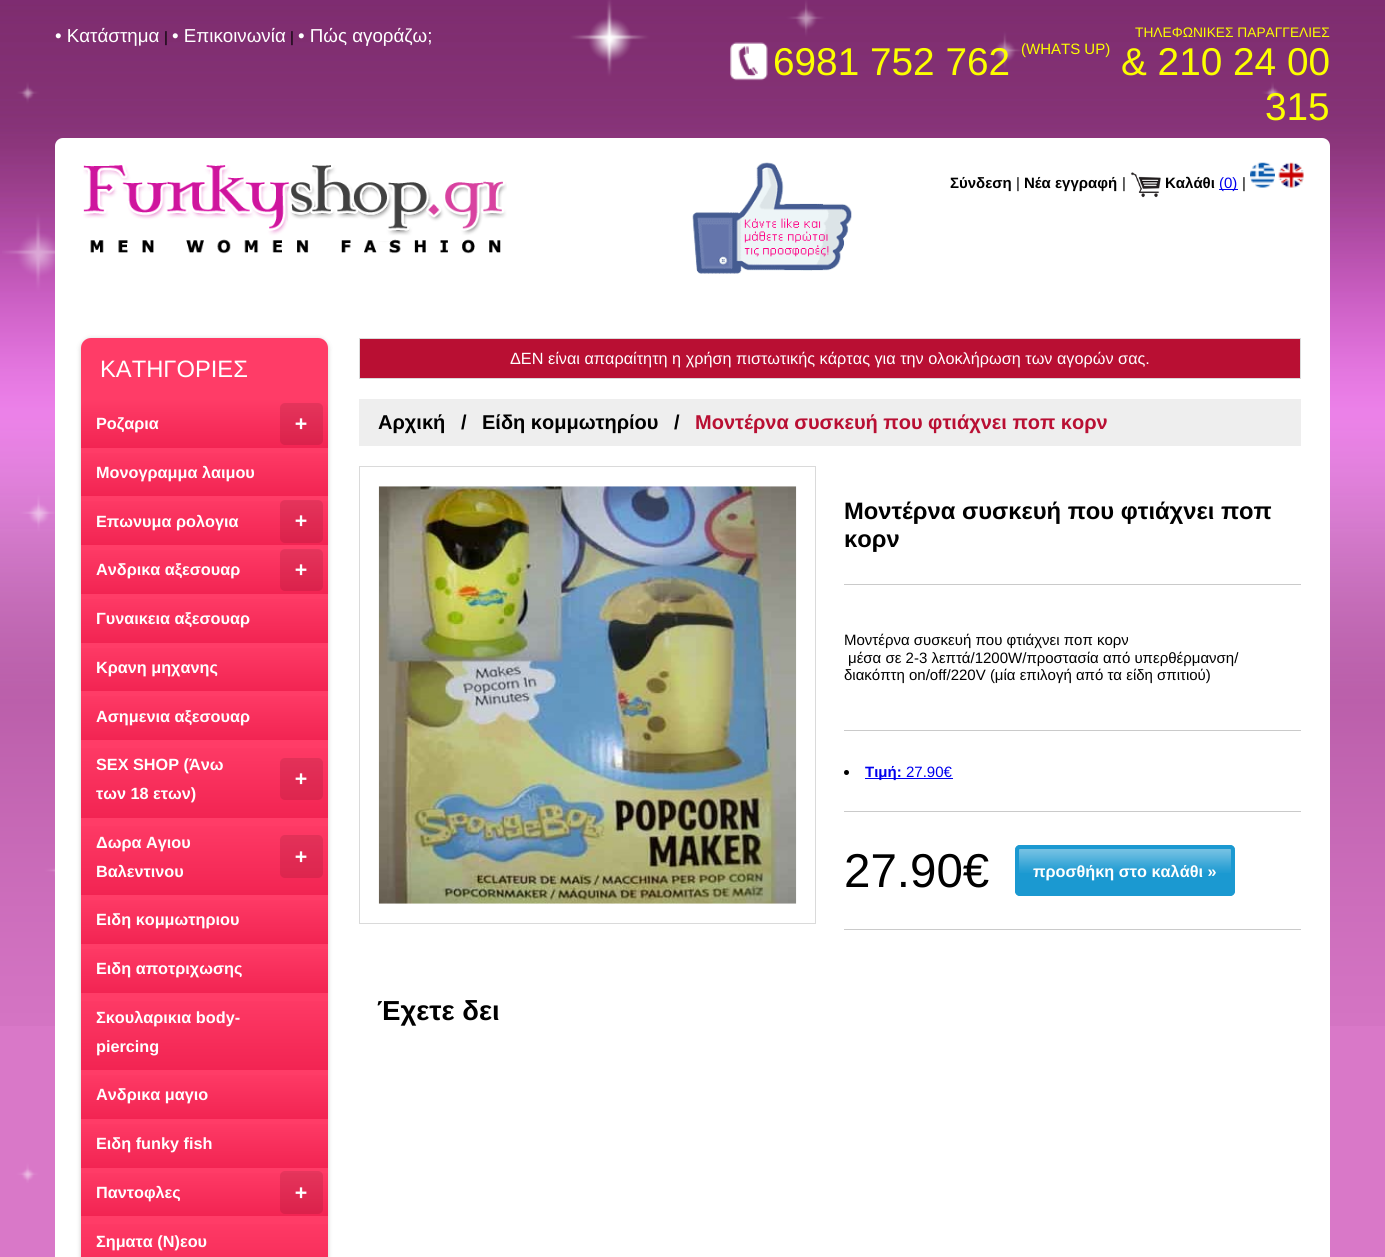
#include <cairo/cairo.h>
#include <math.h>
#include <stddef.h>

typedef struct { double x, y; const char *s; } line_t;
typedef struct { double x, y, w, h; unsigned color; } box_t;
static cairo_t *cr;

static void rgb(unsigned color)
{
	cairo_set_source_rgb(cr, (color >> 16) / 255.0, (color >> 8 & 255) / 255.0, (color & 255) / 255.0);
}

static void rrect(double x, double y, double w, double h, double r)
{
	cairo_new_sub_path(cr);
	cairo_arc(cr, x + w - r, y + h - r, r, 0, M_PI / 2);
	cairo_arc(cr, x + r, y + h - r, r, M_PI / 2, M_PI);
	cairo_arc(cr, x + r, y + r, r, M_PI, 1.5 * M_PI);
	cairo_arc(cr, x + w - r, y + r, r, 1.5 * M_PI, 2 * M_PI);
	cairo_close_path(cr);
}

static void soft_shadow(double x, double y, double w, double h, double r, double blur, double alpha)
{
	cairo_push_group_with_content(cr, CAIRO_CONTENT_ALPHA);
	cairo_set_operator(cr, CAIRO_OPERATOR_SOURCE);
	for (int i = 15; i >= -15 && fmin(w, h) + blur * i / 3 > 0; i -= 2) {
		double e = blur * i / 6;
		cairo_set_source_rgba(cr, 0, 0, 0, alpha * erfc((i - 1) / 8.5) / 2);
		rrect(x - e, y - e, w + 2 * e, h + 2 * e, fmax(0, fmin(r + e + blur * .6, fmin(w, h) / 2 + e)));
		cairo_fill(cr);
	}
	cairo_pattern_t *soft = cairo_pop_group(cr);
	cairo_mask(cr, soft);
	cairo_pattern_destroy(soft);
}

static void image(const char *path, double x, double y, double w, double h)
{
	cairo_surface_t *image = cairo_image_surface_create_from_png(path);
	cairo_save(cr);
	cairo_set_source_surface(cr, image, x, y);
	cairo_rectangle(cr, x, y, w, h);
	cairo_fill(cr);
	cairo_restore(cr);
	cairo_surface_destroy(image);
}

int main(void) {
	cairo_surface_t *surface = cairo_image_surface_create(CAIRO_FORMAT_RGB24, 1385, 1257);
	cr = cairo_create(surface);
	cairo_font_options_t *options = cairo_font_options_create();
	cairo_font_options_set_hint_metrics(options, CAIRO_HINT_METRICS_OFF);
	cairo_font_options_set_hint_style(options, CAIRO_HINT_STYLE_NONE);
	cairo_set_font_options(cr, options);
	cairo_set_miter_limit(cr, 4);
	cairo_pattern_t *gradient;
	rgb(0xd978c8);
	cairo_paint(cr);
	image("img/1.png", 0, 0, 1385, 1026);
	image("img/2.png", 2, 0, 1280, 1183);
	image("img/3.png", 730, 42, 38, 39);
	rgb(0xffffff);
	rrect(55, 138, 1275, 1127, 8);
	cairo_fill(cr);
	image("img/4.png", 83, 165, 424, 89);
	image("img/5.png", 692, 162, 160, 112);
	image("img/6.png", 1130, 172, 31, 26);
	rgb(0x0000ee);
	cairo_rectangle(cr, 1219, 189, 19, 1);
	cairo_fill(cr);
	image("img/7.png", 1250, 162, 25, 26);
	image("img/8.png", 1278, 162, 26, 26);
	rgb(0x000000);
	soft_shadow(81, 339, 247, 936, 10, 2.5, 0.2);
	rgb(0xff3c67);
	rrect(81, 338, 247, 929, 10);
	cairo_fill(cr);
	gradient = cairo_pattern_create_linear(204, 399, 204, 448);
	cairo_pattern_add_color_stop_rgba(gradient, 0, 1, 0.235, 0.404, 1);
	cairo_pattern_add_color_stop_rgba(gradient, 1, 0.949, 0.141, 0.322, 1);
	cairo_set_source(cr, gradient);
	cairo_pattern_destroy(gradient);
	cairo_new_path(cr);
	cairo_move_to(cr, 91, 399);
	cairo_line_to(cr, 318, 399);
	cairo_curve_to(cr, 323.5, 399, 328, 403.5, 328, 409);
	cairo_line_to(cr, 328, 448);
	cairo_line_to(cr, 81, 448);
	cairo_line_to(cr, 81, 409);
	cairo_curve_to(cr, 81, 403.5, 85.5, 399, 91, 399);
	cairo_close_path(cr);
	cairo_fill(cr);
	cairo_set_source_rgba(cr, 0, 0, 0, 0.1);
	rrect(280, 403, 43, 42, 5);
	cairo_fill(cr);
	gradient = cairo_pattern_create_linear(204, 448, 204, 496);
	cairo_pattern_add_color_stop_rgba(gradient, 0, 1, 0.235, 0.404, 1);
	cairo_pattern_add_color_stop_rgba(gradient, 1, 0.949, 0.141, 0.322, 1);
	cairo_set_source(cr, gradient);
	cairo_pattern_destroy(gradient);
	cairo_rectangle(cr, 81, 453, 247, 43);
	cairo_fill(cr);
	gradient = cairo_pattern_create_linear(204, 496, 204, 545);
	cairo_pattern_add_color_stop_rgba(gradient, 0, 1, 0.235, 0.404, 1);
	cairo_pattern_add_color_stop_rgba(gradient, 1, 0.949, 0.141, 0.322, 1);
	cairo_set_source(cr, gradient);
	cairo_pattern_destroy(gradient);
	cairo_rectangle(cr, 81, 501, 247, 44);
	cairo_fill(cr);
	cairo_set_source_rgba(cr, 0, 0, 0, 0.1);
	rrect(280, 500, 43, 43, 5);
	cairo_fill(cr);
	gradient = cairo_pattern_create_linear(204, 545, 204, 594);
	cairo_pattern_add_color_stop_rgba(gradient, 0, 1, 0.235, 0.404, 1);
	cairo_pattern_add_color_stop_rgba(gradient, 1, 0.949, 0.141, 0.322, 1);
	cairo_set_source(cr, gradient);
	cairo_pattern_destroy(gradient);
	cairo_rectangle(cr, 81, 550, 247, 44);
	cairo_fill(cr);
	cairo_set_source_rgba(cr, 0, 0, 0, 0.1);
	rrect(280, 549, 43, 42, 5);
	cairo_fill(cr);
	gradient = cairo_pattern_create_linear(204, 594, 204, 643);
	cairo_pattern_add_color_stop_rgba(gradient, 0, 1, 0.235, 0.404, 1);
	cairo_pattern_add_color_stop_rgba(gradient, 1, 0.949, 0.141, 0.322, 1);
	cairo_set_source(cr, gradient);
	cairo_pattern_destroy(gradient);
	cairo_rectangle(cr, 81, 599, 247, 44);
	cairo_fill(cr);
	gradient = cairo_pattern_create_linear(204, 643, 204, 691);
	cairo_pattern_add_color_stop_rgba(gradient, 0, 1, 0.235, 0.404, 1);
	cairo_pattern_add_color_stop_rgba(gradient, 1, 0.949, 0.141, 0.322, 1);
	cairo_set_source(cr, gradient);
	cairo_pattern_destroy(gradient);
	cairo_rectangle(cr, 81, 648, 247, 43);
	cairo_fill(cr);
	gradient = cairo_pattern_create_linear(204, 691, 204, 740);
	cairo_pattern_add_color_stop_rgba(gradient, 0, 1, 0.235, 0.404, 1);
	cairo_pattern_add_color_stop_rgba(gradient, 1, 0.949, 0.141, 0.322, 1);
	cairo_set_source(cr, gradient);
	cairo_pattern_destroy(gradient);
	cairo_rectangle(cr, 81, 696, 247, 44);
	cairo_fill(cr);
	gradient = cairo_pattern_create_linear(204, 740, 204, 818);
	cairo_pattern_add_color_stop_rgba(gradient, 0, 1, 0.235, 0.404, 1);
	cairo_pattern_add_color_stop_rgba(gradient, 1, 0.949, 0.141, 0.322, 1);
	cairo_set_source(cr, gradient);
	cairo_pattern_destroy(gradient);
	cairo_rectangle(cr, 81, 748, 247, 70);
	cairo_fill(cr);
	cairo_set_source_rgba(cr, 0, 0, 0, 0.1);
	rrect(280, 758, 43, 42, 5);
	cairo_fill(cr);
	gradient = cairo_pattern_create_linear(204, 818, 204, 895);
	cairo_pattern_add_color_stop_rgba(gradient, 0, 1, 0.235, 0.404, 1);
	cairo_pattern_add_color_stop_rgba(gradient, 1, 0.949, 0.141, 0.322, 1);
	cairo_set_source(cr, gradient);
	cairo_pattern_destroy(gradient);
	cairo_rectangle(cr, 81, 826, 247, 69);
	cairo_fill(cr);
	cairo_set_source_rgba(cr, 0, 0, 0, 0.1);
	rrect(280, 835, 43, 43, 5);
	cairo_fill(cr);
	gradient = cairo_pattern_create_linear(204, 895, 204, 944);
	cairo_pattern_add_color_stop_rgba(gradient, 0, 1, 0.235, 0.404, 1);
	cairo_pattern_add_color_stop_rgba(gradient, 1, 0.949, 0.141, 0.322, 1);
	cairo_set_source(cr, gradient);
	cairo_pattern_destroy(gradient);
	cairo_rectangle(cr, 81, 900, 247, 44);
	cairo_fill(cr);
	gradient = cairo_pattern_create_linear(204, 944, 204, 993);
	cairo_pattern_add_color_stop_rgba(gradient, 0, 1, 0.235, 0.404, 1);
	cairo_pattern_add_color_stop_rgba(gradient, 1, 0.949, 0.141, 0.322, 1);
	cairo_set_source(cr, gradient);
	cairo_pattern_destroy(gradient);
	cairo_rectangle(cr, 81, 949, 247, 44);
	cairo_fill(cr);
	gradient = cairo_pattern_create_linear(204, 993, 204, 1070);
	cairo_pattern_add_color_stop_rgba(gradient, 0, 1, 0.235, 0.404, 1);
	cairo_pattern_add_color_stop_rgba(gradient, 1, 0.949, 0.141, 0.322, 1);
	cairo_set_source(cr, gradient);
	cairo_pattern_destroy(gradient);
	cairo_rectangle(cr, 81, 1001, 247, 69);
	cairo_fill(cr);
	gradient = cairo_pattern_create_linear(204, 1070, 204, 1119);
	cairo_pattern_add_color_stop_rgba(gradient, 0, 1, 0.235, 0.404, 1);
	cairo_pattern_add_color_stop_rgba(gradient, 1, 0.949, 0.141, 0.322, 1);
	cairo_set_source(cr, gradient);
	cairo_pattern_destroy(gradient);
	cairo_rectangle(cr, 81, 1075, 247, 44);
	cairo_fill(cr);
	gradient = cairo_pattern_create_linear(204, 1119, 204, 1168);
	cairo_pattern_add_color_stop_rgba(gradient, 0, 1, 0.235, 0.404, 1);
	cairo_pattern_add_color_stop_rgba(gradient, 1, 0.949, 0.141, 0.322, 1);
	cairo_set_source(cr, gradient);
	cairo_pattern_destroy(gradient);
	cairo_rectangle(cr, 81, 1124, 247, 44);
	cairo_fill(cr);
	gradient = cairo_pattern_create_linear(204, 1168, 204, 1216);
	cairo_pattern_add_color_stop_rgba(gradient, 0, 1, 0.235, 0.404, 1);
	cairo_pattern_add_color_stop_rgba(gradient, 1, 0.949, 0.141, 0.322, 1);
	cairo_set_source(cr, gradient);
	cairo_pattern_destroy(gradient);
	cairo_rectangle(cr, 81, 1173, 247, 43);
	cairo_fill(cr);
	cairo_set_source_rgba(cr, 0, 0, 0, 0.1);
	rrect(280, 1171, 43, 43, 5);
	cairo_fill(cr);
	gradient = cairo_pattern_create_linear(204, 1216, 204, 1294);
	cairo_pattern_add_color_stop_rgba(gradient, 0, 1, 0.235, 0.404, 1);
	cairo_pattern_add_color_stop_rgba(gradient, 1, 0.949, 0.141, 0.322, 1);
	cairo_set_source(cr, gradient);
	cairo_pattern_destroy(gradient);
	cairo_rectangle(cr, 81, 1224, 247, 33);
	cairo_fill(cr);
	rgb(0xb90f33);
	cairo_rectangle(cr, 359.5, 338.5, 941, 40);
	cairo_fill_preserve(cr);
	rgb(0xdadada);
	cairo_set_line_width(cr, 1);
	cairo_stroke(cr);
	rgb(0xeeeeee);
	cairo_rectangle(cr, 359, 399, 942, 47);
	cairo_fill(cr);
	cairo_rectangle(cr, 359.5, 466.5, 456, 457);
	rgb(0xdadada);
	cairo_stroke(cr);
	image("img/9.png", 378, 486, 419, 418);
	{
		static const box_t items[] = {
			{844, 584, 457, 1, 0xcacaca},
			{844, 730, 457, 1, 0xcacaca},
			{844, 811, 457, 1, 0xcacaca},
		};
		for (size_t i = 0; i < sizeof items / sizeof *items; i++) {
			rgb(items[i].color);
			cairo_rectangle(cr, items[i].x, items[i].y, items[i].w, items[i].h);
			cairo_fill(cr);
		}
	}
	rgb(0x000000);
	cairo_arc(cr, 846.5, 772.5, 2.5, 0, 2 * M_PI);
	cairo_fill(cr);
	rgb(0x0000ee);
	cairo_rectangle(cr, 865, 778, 88, 1);
	cairo_fill(cr);
	rgb(0xcacaca);
	cairo_rectangle(cr, 844, 929, 457, 1);
	cairo_fill(cr);
	rgb(0x1b99d1);
	rrect(1015, 845, 220, 51, 5);
	cairo_fill(cr);
	image("img/10.png", 1015, 848, 220, 25);
	rrect(1017, 847, 216, 47, 3);
	cairo_set_line_width(cr, 4);
	cairo_stroke(cr);
	cairo_select_font_face(cr, "Liberation Sans", CAIRO_FONT_SLANT_NORMAL, CAIRO_FONT_WEIGHT_NORMAL);
	cairo_set_font_size(cr, 18.75);
	rgb(0xffffff);
	cairo_move_to(cr, 55, 42);
	cairo_show_text(cr, "• Kατάστημα");
	cairo_set_font_size(cr, 15);
	rgb(0x000000);
	cairo_move_to(cr, 164, 42);
	cairo_show_text(cr, "|");
	cairo_set_font_size(cr, 18.75);
	rgb(0xffffff);
	cairo_move_to(cr, 172, 42);
	cairo_show_text(cr, "• Επικοινωνία");
	cairo_set_font_size(cr, 15);
	rgb(0x000000);
	cairo_move_to(cr, 290, 42);
	cairo_show_text(cr, "|");
	cairo_set_font_size(cr, 18.75);
	rgb(0xffffff);
	cairo_move_to(cr, 298, 42);
	cairo_show_text(cr, "• Πώς αγοράζω;");
	cairo_set_font_size(cr, 13.75);
	rgb(0xfcff00);
	cairo_move_to(cr, 1135, 37);
	cairo_show_text(cr, "ΤΗΛΕΦΩΝΙΚΕΣ ΠΑΡΑΓΓΕΛΙΕΣ");
	cairo_set_font_size(cr, 38.75);
	cairo_move_to(cr, 773, 75);
	cairo_show_text(cr, "6981 752 762");
	cairo_set_font_size(cr, 15);
	cairo_move_to(cr, 1021, 54);
	cairo_show_text(cr, "(WHATS UP)");
	cairo_set_font_size(cr, 38.75);
	cairo_move_to(cr, 1121, 75);
	cairo_show_text(cr, "& 210 24 00");
	cairo_move_to(cr, 1265, 120);
	cairo_show_text(cr, "315");
	cairo_select_font_face(cr, "Liberation Sans", CAIRO_FONT_SLANT_NORMAL, CAIRO_FONT_WEIGHT_BOLD);
	cairo_set_font_size(cr, 15);
	rgb(0x000000);
	cairo_move_to(cr, 950, 188);
	cairo_show_text(cr, "Σύνδεση");
	cairo_select_font_face(cr, "Liberation Sans", CAIRO_FONT_SLANT_NORMAL, CAIRO_FONT_WEIGHT_NORMAL);
	cairo_move_to(cr, 1016, 188);
	cairo_show_text(cr, "|");
	cairo_select_font_face(cr, "Liberation Sans", CAIRO_FONT_SLANT_NORMAL, CAIRO_FONT_WEIGHT_BOLD);
	cairo_move_to(cr, 1024, 188);
	cairo_show_text(cr, "Νέα εγγραφή");
	cairo_select_font_face(cr, "Liberation Sans", CAIRO_FONT_SLANT_NORMAL, CAIRO_FONT_WEIGHT_NORMAL);
	cairo_move_to(cr, 1122, 188);
	cairo_show_text(cr, "|");
	cairo_select_font_face(cr, "Liberation Sans", CAIRO_FONT_SLANT_NORMAL, CAIRO_FONT_WEIGHT_BOLD);
	cairo_move_to(cr, 1165, 188);
	cairo_show_text(cr, "Καλάθι");
	cairo_select_font_face(cr, "Liberation Sans", CAIRO_FONT_SLANT_NORMAL, CAIRO_FONT_WEIGHT_NORMAL);
	rgb(0x0000ee);
	cairo_move_to(cr, 1219, 188);
	cairo_show_text(cr, "(0)");
	rgb(0x000000);
	cairo_move_to(cr, 1242, 188);
	cairo_show_text(cr, "|");
	cairo_set_font_size(cr, 23.75);
	rgb(0xffffff);
	cairo_move_to(cr, 100, 377);
	cairo_show_text(cr, "ΚΑΤΗΓΟΡΙΕΣ");
	cairo_select_font_face(cr, "Liberation Sans", CAIRO_FONT_SLANT_NORMAL, CAIRO_FONT_WEIGHT_BOLD);
	cairo_set_font_size(cr, 16.25);
	cairo_move_to(cr, 96, 429);
	cairo_show_text(cr, "Ροζαρια");
	cairo_select_font_face(cr, "DejaVu Sans Mono", CAIRO_FONT_SLANT_NORMAL, CAIRO_FONT_WEIGHT_BOLD);
	cairo_set_font_size(cr, 20);
	cairo_move_to(cr, 295, 430);
	cairo_show_text(cr, "+");
	cairo_select_font_face(cr, "Liberation Sans", CAIRO_FONT_SLANT_NORMAL, CAIRO_FONT_WEIGHT_BOLD);
	cairo_set_font_size(cr, 16.25);
	cairo_move_to(cr, 96, 478);
	cairo_show_text(cr, "Μονογραμμα λαιμου");
	cairo_move_to(cr, 96, 527);
	cairo_show_text(cr, "Επωνυμα ρολογια");
	cairo_select_font_face(cr, "DejaVu Sans Mono", CAIRO_FONT_SLANT_NORMAL, CAIRO_FONT_WEIGHT_BOLD);
	cairo_set_font_size(cr, 20);
	cairo_move_to(cr, 295, 527);
	cairo_show_text(cr, "+");
	cairo_select_font_face(cr, "Liberation Sans", CAIRO_FONT_SLANT_NORMAL, CAIRO_FONT_WEIGHT_BOLD);
	cairo_set_font_size(cr, 16.25);
	cairo_move_to(cr, 96, 575);
	cairo_show_text(cr, "Ανδρικα αξεσουαρ");
	cairo_select_font_face(cr, "DejaVu Sans Mono", CAIRO_FONT_SLANT_NORMAL, CAIRO_FONT_WEIGHT_BOLD);
	cairo_set_font_size(cr, 20);
	cairo_move_to(cr, 295, 576);
	cairo_show_text(cr, "+");
	cairo_select_font_face(cr, "Liberation Sans", CAIRO_FONT_SLANT_NORMAL, CAIRO_FONT_WEIGHT_BOLD);
	cairo_set_font_size(cr, 16.25);
	{
		static const line_t items[] = {
			{96, 624, "Γυναικεια αξεσουαρ"},
			{96, 673, "Κρανη μηχανης"},
			{96, 722, "Ασημενια αξεσουαρ"},
			{96, 770, "SEX SHOP (Άνω"},
		};
		for (size_t i = 0; i < sizeof items / sizeof *items; i++) {
			cairo_move_to(cr, items[i].x, items[i].y);
			cairo_show_text(cr, items[i].s);
		}
	}
	cairo_select_font_face(cr, "DejaVu Sans Mono", CAIRO_FONT_SLANT_NORMAL, CAIRO_FONT_WEIGHT_BOLD);
	cairo_set_font_size(cr, 20);
	cairo_move_to(cr, 295, 785);
	cairo_show_text(cr, "+");
	cairo_select_font_face(cr, "Liberation Sans", CAIRO_FONT_SLANT_NORMAL, CAIRO_FONT_WEIGHT_BOLD);
	cairo_set_font_size(cr, 16.25);
	cairo_move_to(cr, 96, 799);
	cairo_show_text(cr, "των 18 ετων)");
	cairo_move_to(cr, 96, 848);
	cairo_show_text(cr, "Δωρα Αγιου");
	cairo_select_font_face(cr, "DejaVu Sans Mono", CAIRO_FONT_SLANT_NORMAL, CAIRO_FONT_WEIGHT_BOLD);
	cairo_set_font_size(cr, 20);
	cairo_move_to(cr, 295, 863);
	cairo_show_text(cr, "+");
	cairo_select_font_face(cr, "Liberation Sans", CAIRO_FONT_SLANT_NORMAL, CAIRO_FONT_WEIGHT_BOLD);
	cairo_set_font_size(cr, 16.25);
	{
		static const line_t items[] = {
			{96, 877, "Βαλεντινου"},
			{96, 925, "Ειδη κομμωτηριου"},
			{96, 974, "Ειδη αποτριχωσης"},
			{96, 1023, "Σκουλαρικια body-"},
			{96, 1052, "piercing"},
			{96, 1100, "Ανδρικα μαγιο"},
			{96, 1149, "Ειδη funky fish"},
			{96, 1198, "Παντοφλες"},
		};
		for (size_t i = 0; i < sizeof items / sizeof *items; i++) {
			cairo_move_to(cr, items[i].x, items[i].y);
			cairo_show_text(cr, items[i].s);
		}
	}
	cairo_select_font_face(cr, "DejaVu Sans Mono", CAIRO_FONT_SLANT_NORMAL, CAIRO_FONT_WEIGHT_BOLD);
	cairo_set_font_size(cr, 20);
	cairo_move_to(cr, 295, 1199);
	cairo_show_text(cr, "+");
	cairo_select_font_face(cr, "Liberation Sans", CAIRO_FONT_SLANT_NORMAL, CAIRO_FONT_WEIGHT_BOLD);
	cairo_set_font_size(cr, 16.25);
	cairo_move_to(cr, 96, 1247);
	cairo_show_text(cr, "Σηματα (Ν)εου");
	cairo_select_font_face(cr, "Liberation Sans", CAIRO_FONT_SLANT_NORMAL, CAIRO_FONT_WEIGHT_NORMAL);
	cairo_move_to(cr, 510, 364);
	cairo_show_text(cr, "ΔΕΝ είναι απαραίτητη η χρήση πιστωτικής κάρτας για την ολοκλήρωση των αγορών σας.");
	cairo_select_font_face(cr, "Liberation Sans", CAIRO_FONT_SLANT_NORMAL, CAIRO_FONT_WEIGHT_BOLD);
	cairo_set_font_size(cr, 20);
	rgb(0x000000);
	{
		static const line_t items[] = {
			{378, 429, "Αρχική"},
			{461, 429, "/"},
			{482, 429, "Είδη κομμωτηρίου"},
			{674, 429, "/"},
		};
		for (size_t i = 0; i < sizeof items / sizeof *items; i++) {
			cairo_move_to(cr, items[i].x, items[i].y);
			cairo_show_text(cr, items[i].s);
		}
	}
	rgb(0xb90f33);
	cairo_move_to(cr, 695, 429);
	cairo_show_text(cr, "Μοντέρνα συσκευή που φτιάχνει ποπ κορν");
	cairo_set_font_size(cr, 23.75);
	rgb(0x000000);
	cairo_move_to(cr, 844, 519);
	cairo_show_text(cr, "Μοντέρνα συσκευή που φτιάχνει ποπ");
	cairo_move_to(cr, 844, 547);
	cairo_show_text(cr, "κορν");
	cairo_select_font_face(cr, "Liberation Sans", CAIRO_FONT_SLANT_NORMAL, CAIRO_FONT_WEIGHT_NORMAL);
	cairo_set_font_size(cr, 15);
	{
		static const line_t items[] = {
			{844, 645, "Μοντέρνα συσκευή που φτιάχνει ποπ κορν"},
			{848, 663, "μέσα σε 2-3 λεπτά/1200W/προστασία από υπερθέρμανση/"},
			{844, 680, "διακόπτη on/off/220V (μία επιλογή από τα είδη σπιτιού)"},
		};
		for (size_t i = 0; i < sizeof items / sizeof *items; i++) {
			cairo_move_to(cr, items[i].x, items[i].y);
			cairo_show_text(cr, items[i].s);
		}
	}
	cairo_select_font_face(cr, "Liberation Sans", CAIRO_FONT_SLANT_NORMAL, CAIRO_FONT_WEIGHT_BOLD);
	rgb(0x0000ee);
	cairo_move_to(cr, 865, 777);
	cairo_show_text(cr, "Τιμή:");
	cairo_select_font_face(cr, "Liberation Sans", CAIRO_FONT_SLANT_NORMAL, CAIRO_FONT_WEIGHT_NORMAL);
	cairo_move_to(cr, 906, 777);
	cairo_show_text(cr, "27.90€");
	cairo_set_font_size(cr, 47.5);
	rgb(0x000000);
	cairo_move_to(cr, 844, 887);
	cairo_show_text(cr, "27.90€");
	cairo_select_font_face(cr, "Liberation Sans", CAIRO_FONT_SLANT_NORMAL, CAIRO_FONT_WEIGHT_BOLD);
	cairo_set_font_size(cr, 16.25);
	rgb(0xffffff);
	cairo_move_to(cr, 1033, 877);
	cairo_show_text(cr, "προσθήκη στο καλάθι »");
	cairo_set_font_size(cr, 27.5);
	rgb(0x000000);
	cairo_move_to(cr, 377, 1020);
	cairo_show_text(cr, "Έχετε δει");
	cairo_surface_write_to_png(surface, "page.png");
	cairo_font_options_destroy(options);
	cairo_destroy(cr);
	cairo_surface_destroy(surface);
	return 0;
}
